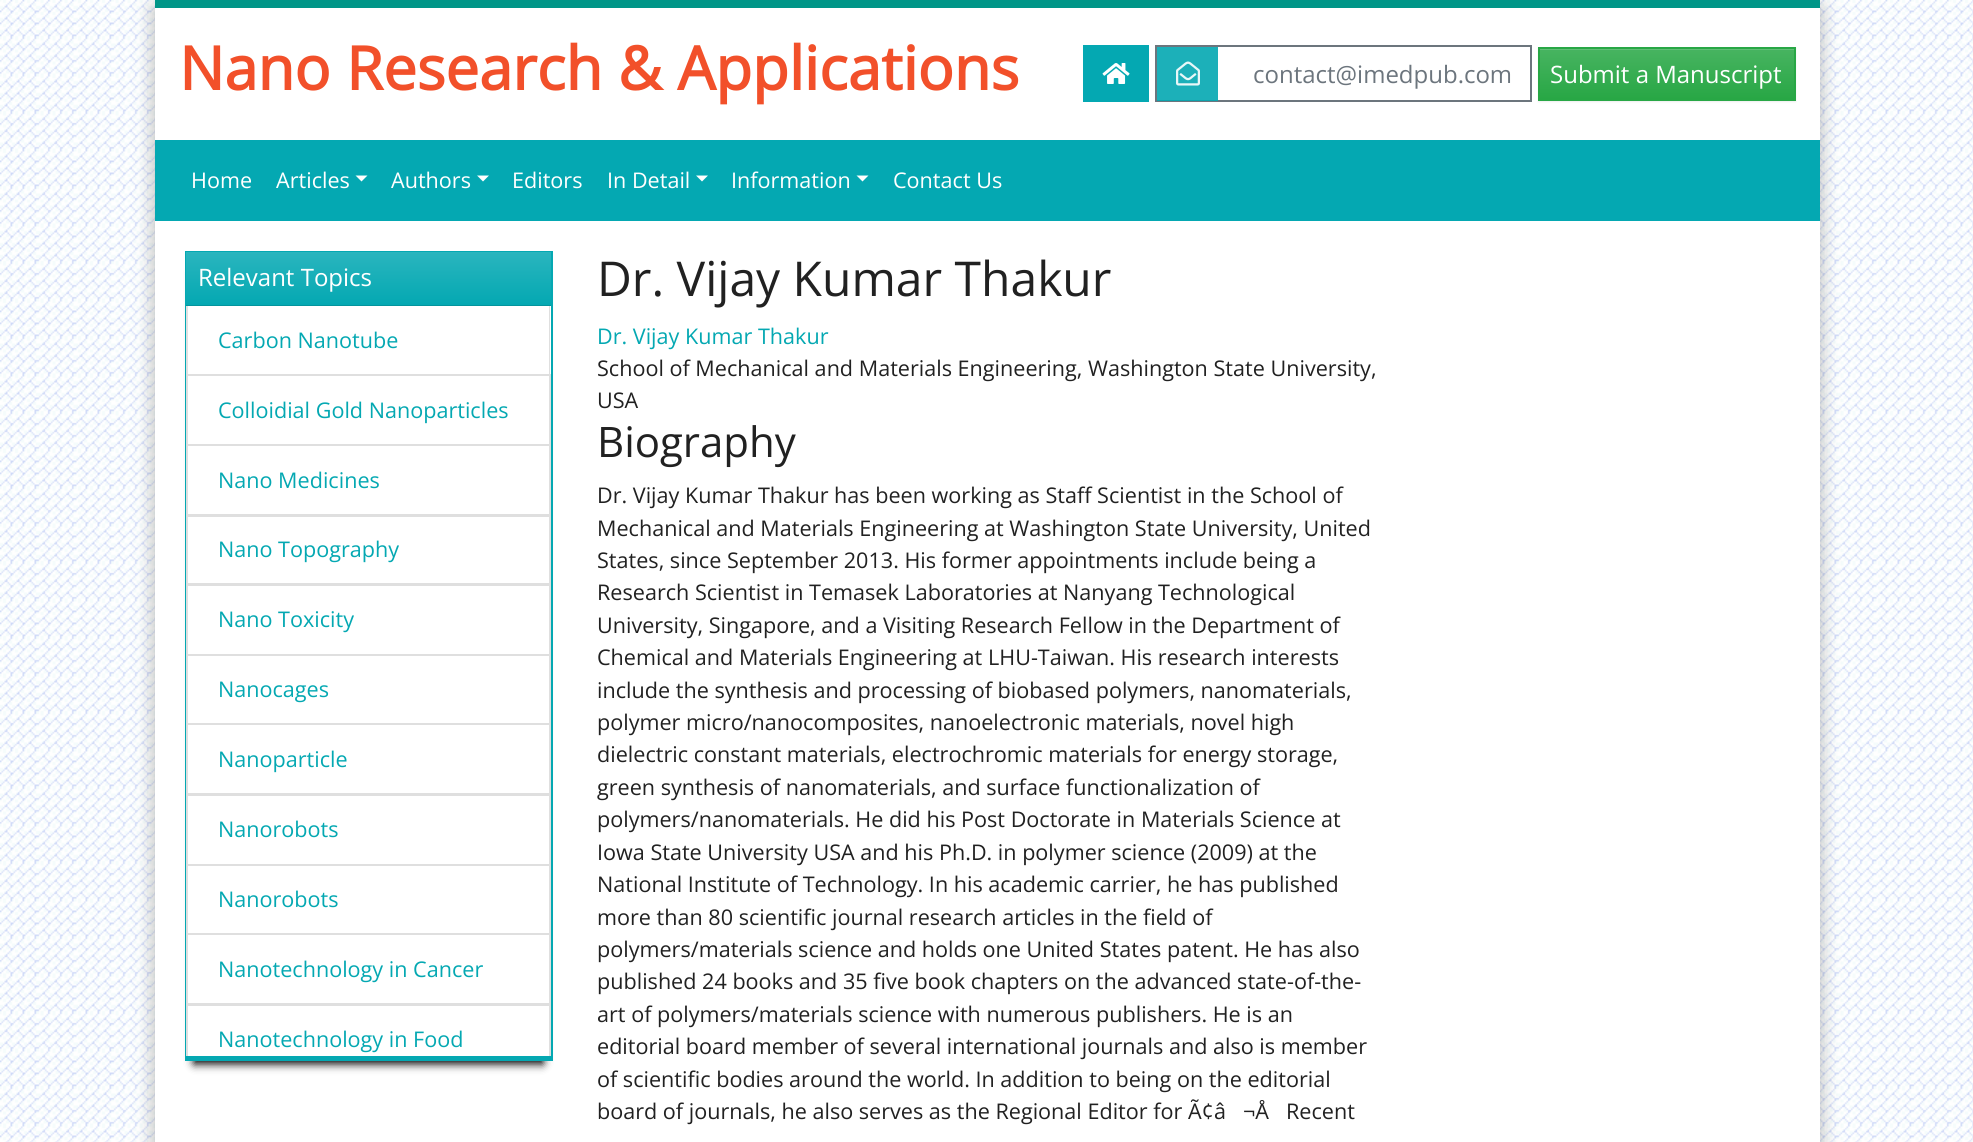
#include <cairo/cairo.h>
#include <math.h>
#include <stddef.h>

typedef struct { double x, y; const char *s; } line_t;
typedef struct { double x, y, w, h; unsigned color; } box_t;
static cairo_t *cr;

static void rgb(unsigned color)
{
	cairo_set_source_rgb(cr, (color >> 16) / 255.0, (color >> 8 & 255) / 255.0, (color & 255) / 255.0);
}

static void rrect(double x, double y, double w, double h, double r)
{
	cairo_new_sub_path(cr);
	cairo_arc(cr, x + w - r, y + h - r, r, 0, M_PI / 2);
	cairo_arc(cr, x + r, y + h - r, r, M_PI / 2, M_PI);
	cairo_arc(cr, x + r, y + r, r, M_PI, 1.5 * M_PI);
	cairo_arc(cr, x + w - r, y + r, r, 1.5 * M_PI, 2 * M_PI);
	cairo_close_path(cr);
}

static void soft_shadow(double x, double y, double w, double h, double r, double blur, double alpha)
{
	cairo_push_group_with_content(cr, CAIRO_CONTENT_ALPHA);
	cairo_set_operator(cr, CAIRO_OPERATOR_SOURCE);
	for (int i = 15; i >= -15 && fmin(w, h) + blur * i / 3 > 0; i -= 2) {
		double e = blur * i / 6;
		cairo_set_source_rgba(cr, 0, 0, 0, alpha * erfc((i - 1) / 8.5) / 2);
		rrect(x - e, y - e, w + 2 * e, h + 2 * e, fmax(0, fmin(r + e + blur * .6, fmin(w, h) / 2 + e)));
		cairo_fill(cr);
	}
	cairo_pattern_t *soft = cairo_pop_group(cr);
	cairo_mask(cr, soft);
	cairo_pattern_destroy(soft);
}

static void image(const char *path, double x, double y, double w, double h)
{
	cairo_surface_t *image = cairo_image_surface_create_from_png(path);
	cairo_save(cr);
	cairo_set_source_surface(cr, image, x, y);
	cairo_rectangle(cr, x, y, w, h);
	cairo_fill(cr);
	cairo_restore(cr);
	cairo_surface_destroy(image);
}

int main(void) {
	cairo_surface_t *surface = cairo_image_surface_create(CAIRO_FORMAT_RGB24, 1973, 1142);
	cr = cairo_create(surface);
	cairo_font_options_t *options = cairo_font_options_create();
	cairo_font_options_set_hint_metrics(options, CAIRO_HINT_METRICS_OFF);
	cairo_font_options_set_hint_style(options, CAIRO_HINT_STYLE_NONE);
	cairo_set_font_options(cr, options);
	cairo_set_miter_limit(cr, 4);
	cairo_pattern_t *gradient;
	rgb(0xffffff);
	cairo_paint(cr);
	image("img/1.png", 0, 0, 1973, 1142);
	rgb(0x000000);
	soft_shadow(152, 2, 1671, 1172, 0, 10.5, 0.12);
	soft_shadow(153, 11, 1668, 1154, 0, 7.5, 0.14);
	{
		static const box_t items[] = {
			{155, 8, 1665, 1134, 0xffffff},
			{155, 0, 1665, 8, 0x009688},
			{1083, 45, 66, 57, 0x04a8b2},
		};
		for (size_t i = 0; i < sizeof items / sizeof *items; i++) {
			rgb(items[i].color);
			cairo_rectangle(cr, items[i].x, items[i].y, items[i].w, items[i].h);
			cairo_fill(cr);
		}
	}
	image("img/2.png", 1102, 63, 28, 21);
	cairo_rectangle(cr, 1156, 46, 375, 55);
	rgb(0x6c757d);
	cairo_stroke(cr);
	cairo_set_source_rgba(cr, 0.016, 0.659, 0.698, 0.9);
	cairo_rectangle(cr, 1157, 47, 61, 54);
	cairo_fill(cr);
	image("img/3.png", 1176, 61, 24, 25);
	rgb(0x000000);
	soft_shadow(1538, 48, 258, 54, 0, 1, 0.07);
	gradient = cairo_pattern_create_linear(1667, 48, 1667, 99);
	cairo_pattern_add_color_stop_rgba(gradient, 0, 0.282, 0.706, 0.38, 1);
	cairo_pattern_add_color_stop_rgba(gradient, 1, 0.157, 0.655, 0.271, 1);
	cairo_set_source(cr, gradient);
	cairo_pattern_destroy(gradient);
	cairo_rectangle(cr, 1540, 50, 254, 49);
	cairo_fill(cr);
	rgb(0x63bf78);
	cairo_rectangle(cr, 1539, 49, 255, 1);
	cairo_fill(cr);
	cairo_rectangle(cr, 1539, 48, 256, 52);
	rgb(0x28a745);
	cairo_stroke(cr);
	rgb(0x04a8b2);
	cairo_rectangle(cr, 155, 140, 1665, 81);
	cairo_fill(cr);
	rgb(0xffffff);
	cairo_new_path(cr);
	cairo_move_to(cr, 355.5, 175.5);
	cairo_line_to(cr, 367.5, 175.5);
	cairo_line_to(cr, 361.5, 181.5);
	cairo_close_path(cr);
	cairo_fill(cr);
	cairo_new_path(cr);
	cairo_move_to(cr, 477, 175.5);
	cairo_line_to(cr, 489, 175.5);
	cairo_line_to(cr, 483, 181.5);
	cairo_close_path(cr);
	cairo_fill(cr);
	cairo_new_path(cr);
	cairo_move_to(cr, 696, 175.5);
	cairo_line_to(cr, 708, 175.5);
	cairo_line_to(cr, 702, 181.5);
	cairo_close_path(cr);
	cairo_fill(cr);
	cairo_new_path(cr);
	cairo_move_to(cr, 856.5, 175.5);
	cairo_line_to(cr, 868.5, 175.5);
	cairo_line_to(cr, 862.5, 181.5);
	cairo_close_path(cr);
	cairo_fill(cr);
	rgb(0x000000);
	soft_shadow(194, 272, 349, 792, 0, 4.5, 1);
	{
		static const box_t items[] = {
			{185, 251, 367, 1, 0x04a8b2},
			{551, 251, 2, 810, 0x04a8b2},
			{185, 1056, 367, 5, 0x04a8b2},
			{185, 251, 2, 810, 0x04a8b2},
			{186, 305, 365, 1, 0x04a8b2},
		};
		for (size_t i = 0; i < sizeof items / sizeof *items; i++) {
			rgb(items[i].color);
			cairo_rectangle(cr, items[i].x, items[i].y, items[i].w, items[i].h);
			cairo_fill(cr);
		}
	}
	gradient = cairo_pattern_create_linear(368, 252, 368, 305);
	cairo_pattern_add_color_stop_rgba(gradient, 0, 0.165, 0.71, 0.745, 1);
	cairo_pattern_add_color_stop_rgba(gradient, 1, 0.016, 0.659, 0.698, 1);
	cairo_set_source(cr, gradient);
	cairo_pattern_destroy(gradient);
	cairo_rectangle(cr, 186, 252, 365, 53);
	cairo_fill(cr);
	cairo_set_source_rgba(cr, 0, 0, 0, 0.12);
	cairo_rectangle(cr, 186, 305, 365, 1);
	cairo_fill(cr);
	rgb(0xffffff);
	cairo_rectangle(cr, 186, 306, 365, 68);
	cairo_fill(cr);
	rgb(0xdfdfdf);
	cairo_new_path(cr);
	cairo_move_to(cr, 550, 306);
	cairo_line_to(cr, 550, 375);
	cairo_line_to(cr, 549, 374);
	cairo_line_to(cr, 549, 306);
	cairo_close_path(cr);
	cairo_fill(cr);
	cairo_set_source_rgba(cr, 0, 0, 0, 0.12);
	cairo_new_path(cr);
	cairo_move_to(cr, 186, 375);
	cairo_line_to(cr, 186, 306);
	cairo_line_to(cr, 188, 306);
	cairo_line_to(cr, 188, 374);
	cairo_close_path(cr);
	cairo_fill(cr);
	rgb(0xffffff);
	cairo_rectangle(cr, 187, 375, 363, 70);
	cairo_fill_preserve(cr);
	rgb(0xdfdfdf);
	cairo_stroke(cr);
	rgb(0xffffff);
	cairo_rectangle(cr, 187, 445, 363, 70);
	cairo_fill_preserve(cr);
	rgb(0xdfdfdf);
	cairo_stroke(cr);
	rgb(0xffffff);
	cairo_rectangle(cr, 187, 516, 363, 68);
	cairo_fill_preserve(cr);
	rgb(0xdfdfdf);
	cairo_stroke(cr);
	rgb(0xffffff);
	cairo_rectangle(cr, 187, 585, 363, 70);
	cairo_fill_preserve(cr);
	rgb(0xdfdfdf);
	cairo_stroke(cr);
	rgb(0xffffff);
	cairo_rectangle(cr, 187, 655, 363, 69);
	cairo_fill_preserve(cr);
	rgb(0xdfdfdf);
	cairo_stroke(cr);
	rgb(0xffffff);
	cairo_rectangle(cr, 187, 724, 363, 70);
	cairo_fill_preserve(cr);
	rgb(0xdfdfdf);
	cairo_stroke(cr);
	rgb(0xffffff);
	cairo_rectangle(cr, 187, 795, 363, 70);
	cairo_fill_preserve(cr);
	rgb(0xdfdfdf);
	cairo_stroke(cr);
	rgb(0xffffff);
	cairo_rectangle(cr, 187, 865, 363, 69);
	cairo_fill_preserve(cr);
	rgb(0xdfdfdf);
	cairo_stroke(cr);
	rgb(0xffffff);
	cairo_rectangle(cr, 187, 934, 363, 70);
	cairo_fill_preserve(cr);
	rgb(0xdfdfdf);
	cairo_stroke(cr);
	rgb(0xffffff);
	cairo_rectangle(cr, 188, 1006, 361, 50);
	cairo_fill(cr);
	cairo_save(cr);
	cairo_rectangle(cr, 186, 306, 365, 750);
	cairo_clip(cr);
	cairo_rectangle(cr, 187, 1005, 363, 70);
	rgb(0xdfdfdf);
	cairo_stroke(cr);
	cairo_restore(cr);
	cairo_select_font_face(cr, "Open Sans", CAIRO_FONT_SLANT_NORMAL, CAIRO_FONT_WEIGHT_BOLD);
	cairo_set_font_size(cr, 60);
	rgb(0xf2502a);
	cairo_move_to(cr, 179, 90);
	cairo_show_text(cr, "Nano Research & Applications");
	cairo_select_font_face(cr, "Open Sans", CAIRO_FONT_SLANT_NORMAL, CAIRO_FONT_WEIGHT_NORMAL);
	cairo_set_font_size(cr, 24);
	rgb(0x6c757d);
	cairo_move_to(cr, 1253, 83);
	cairo_show_text(cr, "contact@imedpub.com");
	rgb(0xffffff);
	cairo_move_to(cr, 1550, 83);
	cairo_show_text(cr, "Submit a Manuscript");
	cairo_set_font_size(cr, 21.6);
	{
		static const line_t items[] = {
			{191, 188, "Home"},
			{276, 188, "Articles"},
			{391, 188, "Authors"},
			{512, 188, "Editors"},
			{607, 188, "In Detail"},
			{731, 188, "Information"},
			{893, 188, "Contact Us"},
		};
		for (size_t i = 0; i < sizeof items / sizeof *items; i++) {
			cairo_move_to(cr, items[i].x, items[i].y);
			cairo_show_text(cr, items[i].s);
		}
	}
	cairo_set_font_size(cr, 24);
	cairo_move_to(cr, 198, 286);
	cairo_show_text(cr, "Relevant Topics");
	cairo_set_font_size(cr, 21.6);
	rgb(0x04a8b2);
	{
		static const line_t items[] = {
			{218, 348, "Carbon Nanotube"},
			{218, 418, "Colloidial Gold Nanoparticles"},
			{218, 488, "Nano Medicines"},
			{218, 557, "Nano Topography"},
			{218, 627, "Nano Toxicity"},
			{218, 697, "Nanocages"},
			{218, 767, "Nanoparticle"},
			{218, 837, "Nanorobots"},
			{218, 907, "Nanorobots"},
			{218, 977, "Nanotechnology in Cancer"},
			{218, 1047, "Nanotechnology in Food"},
		};
		for (size_t i = 0; i < sizeof items / sizeof *items; i++) {
			cairo_move_to(cr, items[i].x, items[i].y);
			cairo_show_text(cr, items[i].s);
		}
	}
	cairo_set_font_size(cr, 48);
	rgb(0x212121);
	cairo_move_to(cr, 597, 296);
	cairo_show_text(cr, "Dr. Vijay Kumar Thakur");
	cairo_set_font_size(cr, 21.6);
	rgb(0x04a8b2);
	cairo_move_to(cr, 597, 344);
	cairo_show_text(cr, "Dr. Vijay Kumar Thakur");
	rgb(0x212121);
	cairo_move_to(cr, 597, 376);
	cairo_show_text(cr, "School of Mechanical and Materials Engineering, Washington State University,");
	cairo_move_to(cr, 597, 408);
	cairo_show_text(cr, "USA");
	cairo_set_font_size(cr, 42);
	cairo_move_to(cr, 597, 457);
	cairo_show_text(cr, "Biography");
	cairo_set_font_size(cr, 21.6);
	{
		static const line_t items[] = {
			{597, 503, "Dr. Vijay Kumar Thakur has been working as Staff Scientist in the School of"},
			{597, 536, "Mechanical and Materials Engineering at Washington State University, United"},
			{597, 568, "States, since September 2013. His former appointments include being a"},
			{597, 600, "Research Scientist in Temasek Laboratories at Nanyang Technological"},
			{597, 633, "University, Singapore, and a Visiting Research Fellow in the Department of"},
			{597, 665, "Chemical and Materials Engineering at LHU-Taiwan. His research interests"},
			{597, 698, "include the synthesis and processing of biobased polymers, nanomaterials,"},
			{597, 730, "polymer micro/nanocomposites, nanoelectronic materials, novel high"},
			{597, 762, "dielectric constant materials, electrochromic materials for energy storage,"},
			{597, 795, "green synthesis of nanomaterials, and surface functionalization of"},
			{597, 827, "polymers/nanomaterials. He did his Post Doctorate in Materials Science at"},
			{597, 860, "Iowa State University USA and his Ph.D. in polymer science (2009) at the"},
			{597, 892, "National Institute of Technology. In his academic carrier, he has published"},
			{597, 925, "more than 80 scientific journal research articles in the field of"},
			{597, 957, "polymers/materials science and holds one United States patent. He has also"},
			{597, 989, "published 24 books and 35 five book chapters on the advanced state-of-the-"},
			{597, 1022, "art of polymers/materials science with numerous publishers. He is an"},
			{597, 1054, "editorial board member of several international journals and also is member"},
			{597, 1087, "of scientific bodies around the world. In addition to being on the editorial"},
			{597, 1119, "board of journals, he also serves as the Regional Editor for Ã¢â"},
			{1243, 1119, "¬Å"},
			{1286, 1119, "Recent"},
		};
		for (size_t i = 0; i < sizeof items / sizeof *items; i++) {
			cairo_move_to(cr, items[i].x, items[i].y);
			cairo_show_text(cr, items[i].s);
		}
	}
	cairo_surface_write_to_png(surface, "page.png");
	cairo_font_options_destroy(options);
	cairo_destroy(cr);
	cairo_surface_destroy(surface);
	return 0;
}
